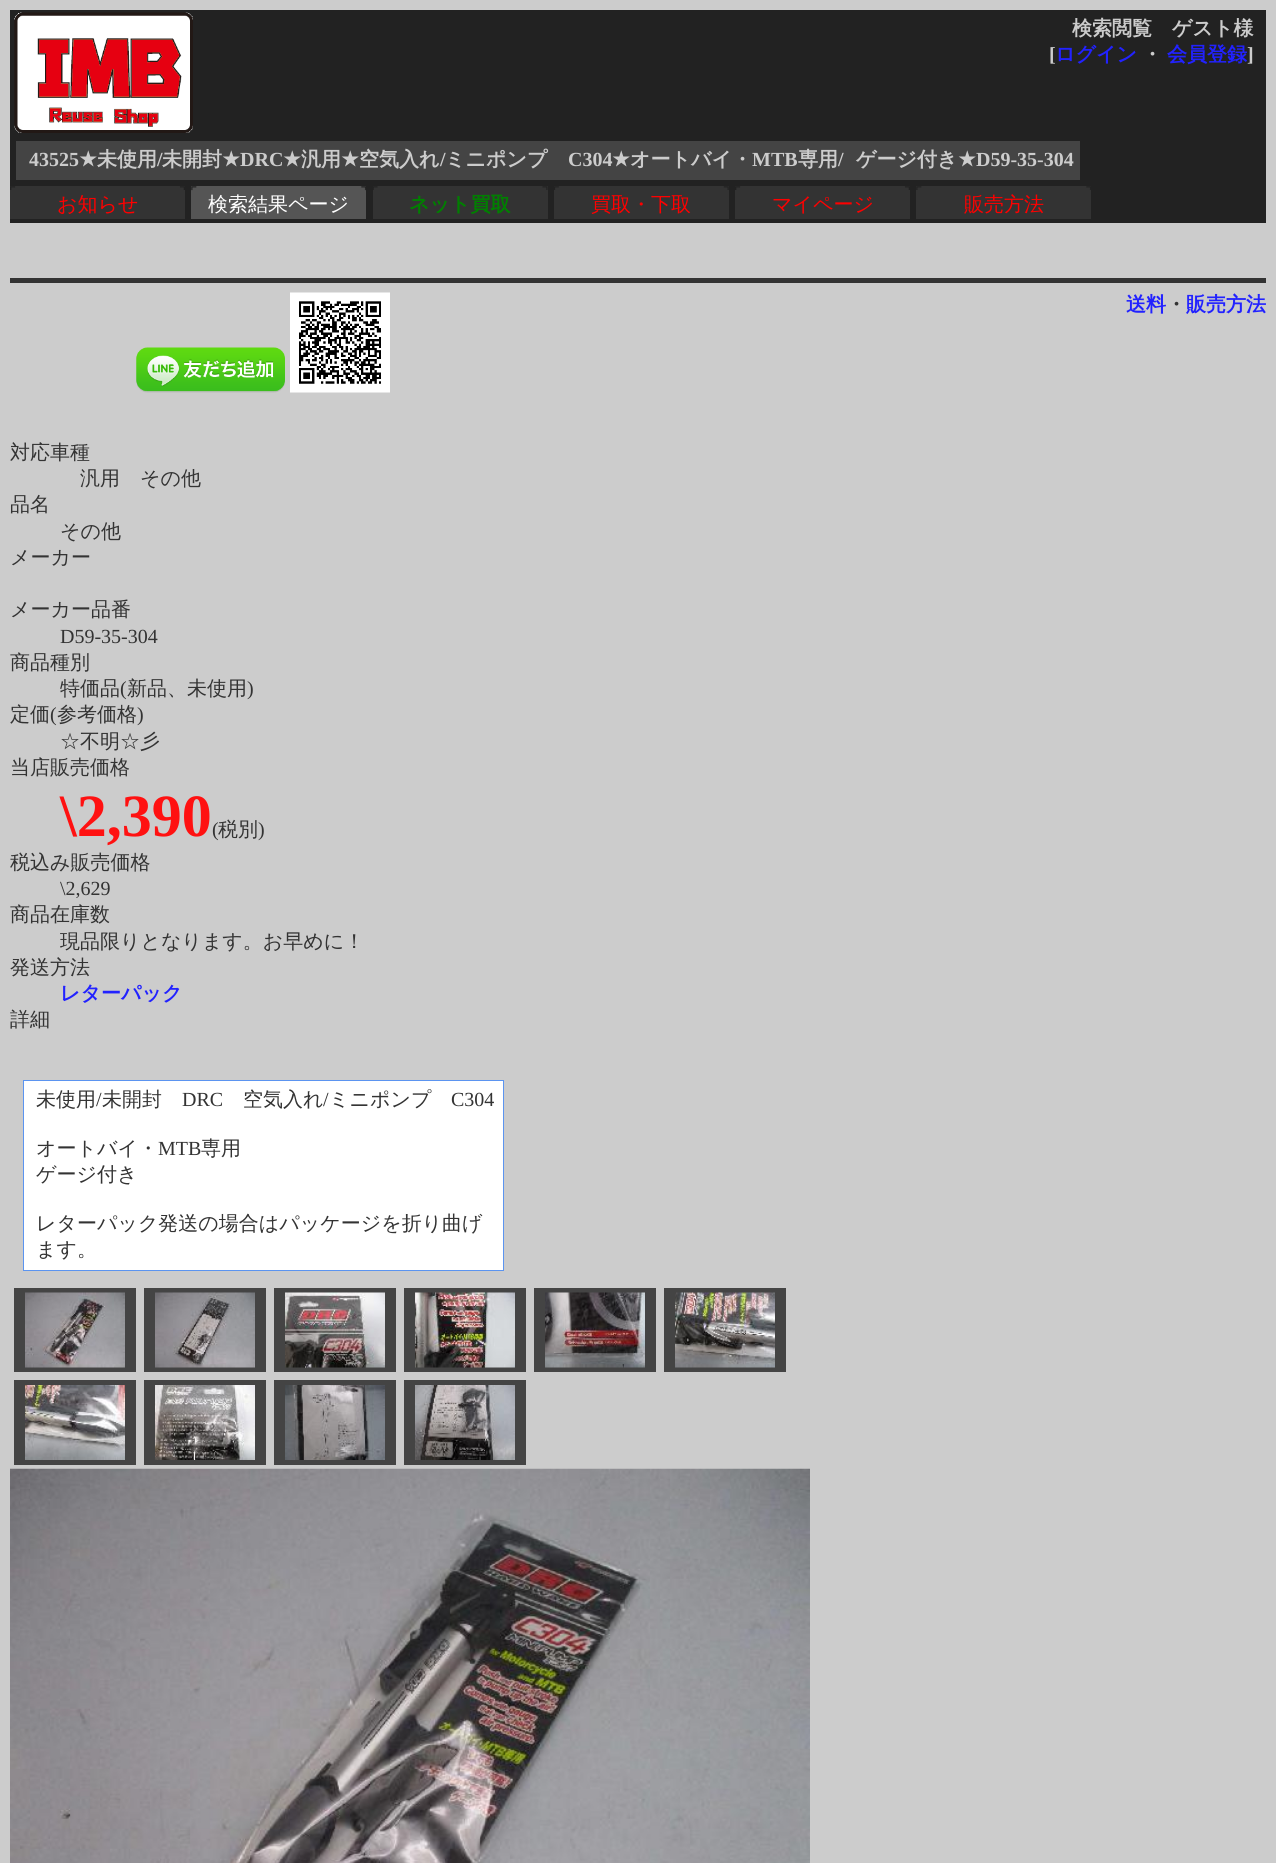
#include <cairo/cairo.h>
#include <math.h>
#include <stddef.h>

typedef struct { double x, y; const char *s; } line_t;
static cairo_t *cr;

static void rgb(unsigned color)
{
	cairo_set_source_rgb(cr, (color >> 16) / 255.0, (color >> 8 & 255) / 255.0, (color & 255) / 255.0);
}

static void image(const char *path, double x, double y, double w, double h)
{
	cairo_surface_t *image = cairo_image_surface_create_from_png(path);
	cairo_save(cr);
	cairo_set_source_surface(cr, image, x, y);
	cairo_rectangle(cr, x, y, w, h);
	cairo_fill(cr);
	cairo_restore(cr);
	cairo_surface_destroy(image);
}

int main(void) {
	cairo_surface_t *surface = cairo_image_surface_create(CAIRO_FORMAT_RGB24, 1276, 1863);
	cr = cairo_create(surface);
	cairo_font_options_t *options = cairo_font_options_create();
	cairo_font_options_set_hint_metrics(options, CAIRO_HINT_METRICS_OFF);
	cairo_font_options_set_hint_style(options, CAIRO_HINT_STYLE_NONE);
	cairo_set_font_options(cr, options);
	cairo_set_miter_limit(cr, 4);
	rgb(0xcccccc);
	cairo_paint(cr);
	rgb(0x222222);
	cairo_rectangle(cr, 10, 10, 1256, 213);
	cairo_fill(cr);
	image("img/1.png", 14, 12, 179, 121);
	rgb(0x444444);
	cairo_rectangle(cr, 16, 141, 1064, 39);
	cairo_fill(cr);
	rgb(0x333333);
	cairo_rectangle(cr, 10, 186, 175, 33);
	cairo_fill(cr);
	image("img/2.png", 10, 186, 175, 4);
	rgb(0x555555);
	cairo_rectangle(cr, 191, 186, 175, 33);
	cairo_fill(cr);
	image("img/3.png", 191, 186, 175, 5);
	rgb(0x333333);
	cairo_rectangle(cr, 373, 186, 175, 33);
	cairo_fill(cr);
	image("img/4.png", 373, 186, 175, 4);
	cairo_rectangle(cr, 554, 186, 175, 33);
	cairo_fill(cr);
	image("img/5.png", 554, 186, 175, 4);
	cairo_rectangle(cr, 735, 186, 175, 33);
	cairo_fill(cr);
	image("img/2.png", 735, 186, 175, 4);
	cairo_rectangle(cr, 916, 186, 175, 33);
	cairo_fill(cr);
	image("img/6.png", 916, 186, 175, 4);
	cairo_rectangle(cr, 10, 278, 1256, 5);
	cairo_fill(cr);
	image("img/7.png", 136, 347, 149, 46);
	image("img/8.png", 290, 292, 100, 101);
	rgb(0xffffff);
	cairo_rectangle(cr, 23.5, 1080.5, 480, 190);
	cairo_fill_preserve(cr);
	rgb(0x5b94f0);
	cairo_set_line_width(cr, 1);
	cairo_stroke(cr);
	rgb(0x444444);
	cairo_rectangle(cr, 14, 1288, 122, 84);
	cairo_fill(cr);
	image("img/9.png", 25, 1292, 100, 76);
	cairo_rectangle(cr, 144, 1288, 122, 84);
	cairo_fill(cr);
	image("img/10.png", 155, 1292, 100, 76);
	cairo_rectangle(cr, 274, 1288, 122, 84);
	cairo_fill(cr);
	image("img/11.png", 285, 1292, 100, 76);
	cairo_rectangle(cr, 404, 1288, 122, 84);
	cairo_fill(cr);
	image("img/12.png", 415, 1292, 100, 76);
	cairo_rectangle(cr, 534, 1288, 122, 84);
	cairo_fill(cr);
	image("img/13.png", 545, 1292, 100, 76);
	cairo_rectangle(cr, 664, 1288, 122, 84);
	cairo_fill(cr);
	image("img/14.png", 675, 1292, 100, 76);
	cairo_rectangle(cr, 14, 1380, 122, 85);
	cairo_fill(cr);
	image("img/15.png", 25, 1385, 100, 75);
	cairo_rectangle(cr, 144, 1380, 122, 85);
	cairo_fill(cr);
	image("img/16.png", 155, 1385, 100, 75);
	cairo_rectangle(cr, 274, 1380, 122, 85);
	cairo_fill(cr);
	image("img/17.png", 285, 1385, 100, 75);
	cairo_rectangle(cr, 404, 1380, 122, 85);
	cairo_fill(cr);
	image("img/18.png", 415, 1385, 100, 75);
	image("img/19.png", 10, 1468, 800, 395);
	cairo_select_font_face(cr, "WenQuanYi Zen Hei", CAIRO_FONT_SLANT_NORMAL, CAIRO_FONT_WEIGHT_BOLD);
	cairo_set_font_size(cr, 20);
	rgb(0xcccccc);
	cairo_move_to(cr, 1072, 35);
	cairo_show_text(cr, "検索閲覧　ゲスト様");
	cairo_select_font_face(cr, "Liberation Serif", CAIRO_FONT_SLANT_NORMAL, CAIRO_FONT_WEIGHT_BOLD);
	cairo_move_to(cr, 1049, 61);
	cairo_show_text(cr, "[");
	cairo_select_font_face(cr, "WenQuanYi Zen Hei", CAIRO_FONT_SLANT_NORMAL, CAIRO_FONT_WEIGHT_BOLD);
	rgb(0x2222ff);
	cairo_move_to(cr, 1055, 61);
	cairo_show_text(cr, "ログイン");
	rgb(0xcccccc);
	cairo_move_to(cr, 1142, 61);
	cairo_show_text(cr, "・");
	rgb(0x2222ff);
	cairo_move_to(cr, 1167, 61);
	cairo_show_text(cr, "会員登録");
	cairo_select_font_face(cr, "Liberation Serif", CAIRO_FONT_SLANT_NORMAL, CAIRO_FONT_WEIGHT_BOLD);
	rgb(0xcccccc);
	cairo_move_to(cr, 1247, 61);
	cairo_show_text(cr, "]");
	cairo_move_to(cr, 29, 166);
	cairo_show_text(cr, "43525");
	cairo_select_font_face(cr, "DejaVu Sans", CAIRO_FONT_SLANT_NORMAL, CAIRO_FONT_WEIGHT_BOLD);
	cairo_move_to(cr, 79, 166);
	cairo_show_text(cr, "★");
	cairo_select_font_face(cr, "WenQuanYi Zen Hei", CAIRO_FONT_SLANT_NORMAL, CAIRO_FONT_WEIGHT_BOLD);
	cairo_move_to(cr, 97, 166);
	cairo_show_text(cr, "未使用");
	cairo_select_font_face(cr, "Liberation Serif", CAIRO_FONT_SLANT_NORMAL, CAIRO_FONT_WEIGHT_BOLD);
	cairo_move_to(cr, 157, 166);
	cairo_show_text(cr, "/");
	cairo_select_font_face(cr, "WenQuanYi Zen Hei", CAIRO_FONT_SLANT_NORMAL, CAIRO_FONT_WEIGHT_BOLD);
	cairo_move_to(cr, 162, 166);
	cairo_show_text(cr, "未開封");
	cairo_select_font_face(cr, "DejaVu Sans", CAIRO_FONT_SLANT_NORMAL, CAIRO_FONT_WEIGHT_BOLD);
	cairo_move_to(cr, 222, 166);
	cairo_show_text(cr, "★");
	cairo_select_font_face(cr, "Liberation Serif", CAIRO_FONT_SLANT_NORMAL, CAIRO_FONT_WEIGHT_BOLD);
	cairo_move_to(cr, 240, 166);
	cairo_show_text(cr, "DRC");
	cairo_select_font_face(cr, "DejaVu Sans", CAIRO_FONT_SLANT_NORMAL, CAIRO_FONT_WEIGHT_BOLD);
	cairo_move_to(cr, 283, 166);
	cairo_show_text(cr, "★");
	cairo_select_font_face(cr, "WenQuanYi Zen Hei", CAIRO_FONT_SLANT_NORMAL, CAIRO_FONT_WEIGHT_BOLD);
	cairo_move_to(cr, 301, 166);
	cairo_show_text(cr, "汎用");
	cairo_select_font_face(cr, "DejaVu Sans", CAIRO_FONT_SLANT_NORMAL, CAIRO_FONT_WEIGHT_BOLD);
	cairo_move_to(cr, 341, 166);
	cairo_show_text(cr, "★");
	cairo_select_font_face(cr, "WenQuanYi Zen Hei", CAIRO_FONT_SLANT_NORMAL, CAIRO_FONT_WEIGHT_BOLD);
	cairo_move_to(cr, 359, 166);
	cairo_show_text(cr, "空気入れ");
	cairo_select_font_face(cr, "Liberation Serif", CAIRO_FONT_SLANT_NORMAL, CAIRO_FONT_WEIGHT_BOLD);
	cairo_move_to(cr, 440, 166);
	cairo_show_text(cr, "/");
	cairo_select_font_face(cr, "WenQuanYi Zen Hei", CAIRO_FONT_SLANT_NORMAL, CAIRO_FONT_WEIGHT_BOLD);
	cairo_move_to(cr, 445, 166);
	cairo_show_text(cr, "ミニポンプ");
	cairo_select_font_face(cr, "Liberation Serif", CAIRO_FONT_SLANT_NORMAL, CAIRO_FONT_WEIGHT_BOLD);
	cairo_move_to(cr, 568, 166);
	cairo_show_text(cr, "C304");
	cairo_select_font_face(cr, "DejaVu Sans", CAIRO_FONT_SLANT_NORMAL, CAIRO_FONT_WEIGHT_BOLD);
	cairo_move_to(cr, 612, 166);
	cairo_show_text(cr, "★");
	cairo_select_font_face(cr, "WenQuanYi Zen Hei", CAIRO_FONT_SLANT_NORMAL, CAIRO_FONT_WEIGHT_BOLD);
	cairo_move_to(cr, 630, 166);
	cairo_show_text(cr, "オートバイ・");
	cairo_select_font_face(cr, "Liberation Serif", CAIRO_FONT_SLANT_NORMAL, CAIRO_FONT_WEIGHT_BOLD);
	cairo_move_to(cr, 752, 166);
	cairo_show_text(cr, "MTB");
	cairo_select_font_face(cr, "WenQuanYi Zen Hei", CAIRO_FONT_SLANT_NORMAL, CAIRO_FONT_WEIGHT_BOLD);
	cairo_move_to(cr, 798, 166);
	cairo_show_text(cr, "専用");
	cairo_select_font_face(cr, "Liberation Serif", CAIRO_FONT_SLANT_NORMAL, CAIRO_FONT_WEIGHT_BOLD);
	cairo_move_to(cr, 838, 166);
	cairo_show_text(cr, "/");
	cairo_select_font_face(cr, "WenQuanYi Zen Hei", CAIRO_FONT_SLANT_NORMAL, CAIRO_FONT_WEIGHT_BOLD);
	cairo_move_to(cr, 856, 166);
	cairo_show_text(cr, "ゲージ付き");
	cairo_select_font_face(cr, "DejaVu Sans", CAIRO_FONT_SLANT_NORMAL, CAIRO_FONT_WEIGHT_BOLD);
	cairo_move_to(cr, 958, 166);
	cairo_show_text(cr, "★");
	cairo_select_font_face(cr, "Liberation Serif", CAIRO_FONT_SLANT_NORMAL, CAIRO_FONT_WEIGHT_BOLD);
	cairo_move_to(cr, 976, 166);
	cairo_show_text(cr, "D59-35-304");
	cairo_select_font_face(cr, "WenQuanYi Zen Hei Medium", CAIRO_FONT_SLANT_NORMAL, CAIRO_FONT_WEIGHT_NORMAL);
	rgb(0xff0000);
	cairo_move_to(cr, 57, 211);
	cairo_show_text(cr, "お知らせ");
	rgb(0xffffff);
	cairo_move_to(cr, 208, 211);
	cairo_show_text(cr, "検索結果ページ");
	cairo_select_font_face(cr, "WenQuanYi Zen Hei", CAIRO_FONT_SLANT_NORMAL, CAIRO_FONT_WEIGHT_BOLD);
	rgb(0x008000);
	cairo_move_to(cr, 409, 211);
	cairo_show_text(cr, "ネット買取");
	cairo_select_font_face(cr, "WenQuanYi Zen Hei Medium", CAIRO_FONT_SLANT_NORMAL, CAIRO_FONT_WEIGHT_NORMAL);
	rgb(0xff0000);
	{
		static const line_t items[] = {
			{591, 211, "買取・下取"},
			{772, 211, "マイページ"},
			{964, 211, "販売方法"},
		};
		for (size_t i = 0; i < sizeof items / sizeof *items; i++) {
			cairo_move_to(cr, items[i].x, items[i].y);
			cairo_show_text(cr, items[i].s);
		}
	}
	cairo_select_font_face(cr, "WenQuanYi Zen Hei", CAIRO_FONT_SLANT_NORMAL, CAIRO_FONT_WEIGHT_BOLD);
	rgb(0x2222ff);
	cairo_move_to(cr, 1126, 311);
	cairo_show_text(cr, "送料");
	rgb(0x333333);
	cairo_move_to(cr, 1166, 311);
	cairo_show_text(cr, "・");
	rgb(0x2222ff);
	cairo_move_to(cr, 1186, 311);
	cairo_show_text(cr, "販売方法");
	cairo_select_font_face(cr, "WenQuanYi Zen Hei Medium", CAIRO_FONT_SLANT_NORMAL, CAIRO_FONT_WEIGHT_NORMAL);
	rgb(0x333333);
	{
		static const line_t items[] = {
			{10, 459, "対応車種"},
			{80, 485, "汎用　その他"},
			{10, 511, "品名"},
			{60, 538, "その他"},
			{10, 564, "メーカー"},
			{10, 616, "メーカー品番"},
		};
		for (size_t i = 0; i < sizeof items / sizeof *items; i++) {
			cairo_move_to(cr, items[i].x, items[i].y);
			cairo_show_text(cr, items[i].s);
		}
	}
	cairo_select_font_face(cr, "Liberation Serif", CAIRO_FONT_SLANT_NORMAL, CAIRO_FONT_WEIGHT_NORMAL);
	cairo_move_to(cr, 60, 643);
	cairo_show_text(cr, "D59-35-304");
	cairo_select_font_face(cr, "WenQuanYi Zen Hei Medium", CAIRO_FONT_SLANT_NORMAL, CAIRO_FONT_WEIGHT_NORMAL);
	cairo_move_to(cr, 10, 669);
	cairo_show_text(cr, "商品種別");
	cairo_move_to(cr, 60, 695);
	cairo_show_text(cr, "特価品");
	cairo_select_font_face(cr, "Liberation Serif", CAIRO_FONT_SLANT_NORMAL, CAIRO_FONT_WEIGHT_NORMAL);
	cairo_move_to(cr, 120, 695);
	cairo_show_text(cr, "(");
	cairo_select_font_face(cr, "WenQuanYi Zen Hei Medium", CAIRO_FONT_SLANT_NORMAL, CAIRO_FONT_WEIGHT_NORMAL);
	cairo_move_to(cr, 127, 695);
	cairo_show_text(cr, "新品、未使用");
	cairo_select_font_face(cr, "Liberation Serif", CAIRO_FONT_SLANT_NORMAL, CAIRO_FONT_WEIGHT_NORMAL);
	cairo_move_to(cr, 247, 695);
	cairo_show_text(cr, ")");
	cairo_select_font_face(cr, "WenQuanYi Zen Hei Medium", CAIRO_FONT_SLANT_NORMAL, CAIRO_FONT_WEIGHT_NORMAL);
	cairo_move_to(cr, 10, 721);
	cairo_show_text(cr, "定価");
	cairo_select_font_face(cr, "Liberation Serif", CAIRO_FONT_SLANT_NORMAL, CAIRO_FONT_WEIGHT_NORMAL);
	cairo_move_to(cr, 50, 721);
	cairo_show_text(cr, "(");
	cairo_select_font_face(cr, "WenQuanYi Zen Hei Medium", CAIRO_FONT_SLANT_NORMAL, CAIRO_FONT_WEIGHT_NORMAL);
	cairo_move_to(cr, 57, 721);
	cairo_show_text(cr, "参考価格");
	cairo_select_font_face(cr, "Liberation Serif", CAIRO_FONT_SLANT_NORMAL, CAIRO_FONT_WEIGHT_NORMAL);
	cairo_move_to(cr, 137, 721);
	cairo_show_text(cr, ")");
	cairo_select_font_face(cr, "WenQuanYi Zen Hei Medium", CAIRO_FONT_SLANT_NORMAL, CAIRO_FONT_WEIGHT_NORMAL);
	cairo_move_to(cr, 60, 748);
	cairo_show_text(cr, "☆不明☆彡");
	cairo_move_to(cr, 10, 774);
	cairo_show_text(cr, "当店販売価格");
	cairo_select_font_face(cr, "Liberation Serif", CAIRO_FONT_SLANT_NORMAL, CAIRO_FONT_WEIGHT_BOLD);
	cairo_set_font_size(cr, 60);
	rgb(0xff1111);
	cairo_move_to(cr, 60, 836);
	cairo_show_text(cr, "\\2,390");
	cairo_select_font_face(cr, "Liberation Serif", CAIRO_FONT_SLANT_NORMAL, CAIRO_FONT_WEIGHT_NORMAL);
	cairo_set_font_size(cr, 20);
	rgb(0x333333);
	cairo_move_to(cr, 212, 836);
	cairo_show_text(cr, "(");
	cairo_select_font_face(cr, "WenQuanYi Zen Hei Medium", CAIRO_FONT_SLANT_NORMAL, CAIRO_FONT_WEIGHT_NORMAL);
	cairo_move_to(cr, 218, 836);
	cairo_show_text(cr, "税別");
	cairo_select_font_face(cr, "Liberation Serif", CAIRO_FONT_SLANT_NORMAL, CAIRO_FONT_WEIGHT_NORMAL);
	cairo_move_to(cr, 258, 836);
	cairo_show_text(cr, ")");
	cairo_select_font_face(cr, "WenQuanYi Zen Hei Medium", CAIRO_FONT_SLANT_NORMAL, CAIRO_FONT_WEIGHT_NORMAL);
	cairo_move_to(cr, 10, 869);
	cairo_show_text(cr, "税込み販売価格");
	cairo_select_font_face(cr, "Liberation Serif", CAIRO_FONT_SLANT_NORMAL, CAIRO_FONT_WEIGHT_NORMAL);
	cairo_move_to(cr, 60, 895);
	cairo_show_text(cr, "\\2,629");
	cairo_select_font_face(cr, "WenQuanYi Zen Hei Medium", CAIRO_FONT_SLANT_NORMAL, CAIRO_FONT_WEIGHT_NORMAL);
	{
		static const line_t items[] = {
			{10, 921, "商品在庫数"},
			{60, 948, "現品限りとなります。お早めに！"},
			{10, 974, "発送方法"},
		};
		for (size_t i = 0; i < sizeof items / sizeof *items; i++) {
			cairo_move_to(cr, items[i].x, items[i].y);
			cairo_show_text(cr, items[i].s);
		}
	}
	cairo_select_font_face(cr, "WenQuanYi Zen Hei", CAIRO_FONT_SLANT_NORMAL, CAIRO_FONT_WEIGHT_BOLD);
	rgb(0x2222ff);
	cairo_move_to(cr, 60, 1000);
	cairo_show_text(cr, "レターパック");
	cairo_select_font_face(cr, "WenQuanYi Zen Hei Medium", CAIRO_FONT_SLANT_NORMAL, CAIRO_FONT_WEIGHT_NORMAL);
	rgb(0x333333);
	cairo_move_to(cr, 10, 1026);
	cairo_show_text(cr, "詳細");
	cairo_move_to(cr, 36, 1106);
	cairo_show_text(cr, "未使用");
	cairo_select_font_face(cr, "Liberation Serif", CAIRO_FONT_SLANT_NORMAL, CAIRO_FONT_WEIGHT_NORMAL);
	cairo_move_to(cr, 96, 1106);
	cairo_show_text(cr, "/");
	cairo_select_font_face(cr, "WenQuanYi Zen Hei Medium", CAIRO_FONT_SLANT_NORMAL, CAIRO_FONT_WEIGHT_NORMAL);
	cairo_move_to(cr, 102, 1106);
	cairo_show_text(cr, "未開封");
	cairo_select_font_face(cr, "Liberation Serif", CAIRO_FONT_SLANT_NORMAL, CAIRO_FONT_WEIGHT_NORMAL);
	cairo_move_to(cr, 182, 1106);
	cairo_show_text(cr, "DRC");
	cairo_select_font_face(cr, "WenQuanYi Zen Hei Medium", CAIRO_FONT_SLANT_NORMAL, CAIRO_FONT_WEIGHT_NORMAL);
	cairo_move_to(cr, 243, 1106);
	cairo_show_text(cr, "空気入れ");
	cairo_select_font_face(cr, "Liberation Serif", CAIRO_FONT_SLANT_NORMAL, CAIRO_FONT_WEIGHT_NORMAL);
	cairo_move_to(cr, 323, 1106);
	cairo_show_text(cr, "/");
	cairo_select_font_face(cr, "WenQuanYi Zen Hei Medium", CAIRO_FONT_SLANT_NORMAL, CAIRO_FONT_WEIGHT_NORMAL);
	cairo_move_to(cr, 329, 1106);
	cairo_show_text(cr, "ミニポンプ");
	cairo_select_font_face(cr, "Liberation Serif", CAIRO_FONT_SLANT_NORMAL, CAIRO_FONT_WEIGHT_NORMAL);
	cairo_move_to(cr, 451, 1106);
	cairo_show_text(cr, "C304");
	cairo_select_font_face(cr, "WenQuanYi Zen Hei Medium", CAIRO_FONT_SLANT_NORMAL, CAIRO_FONT_WEIGHT_NORMAL);
	cairo_move_to(cr, 36, 1155);
	cairo_show_text(cr, "オートバイ・");
	cairo_select_font_face(cr, "Liberation Serif", CAIRO_FONT_SLANT_NORMAL, CAIRO_FONT_WEIGHT_NORMAL);
	cairo_move_to(cr, 158, 1155);
	cairo_show_text(cr, "MTB");
	cairo_select_font_face(cr, "WenQuanYi Zen Hei Medium", CAIRO_FONT_SLANT_NORMAL, CAIRO_FONT_WEIGHT_NORMAL);
	{
		static const line_t items[] = {
			{201, 1155, "専用"},
			{36, 1181, "ゲージ付き"},
			{36, 1230, "レターパック発送の場合はパッケージを折り曲げ"},
			{36, 1256, "ます。"},
		};
		for (size_t i = 0; i < sizeof items / sizeof *items; i++) {
			cairo_move_to(cr, items[i].x, items[i].y);
			cairo_show_text(cr, items[i].s);
		}
	}
	cairo_surface_write_to_png(surface, "page.png");
	cairo_font_options_destroy(options);
	cairo_destroy(cr);
	cairo_surface_destroy(surface);
	return 0;
}
